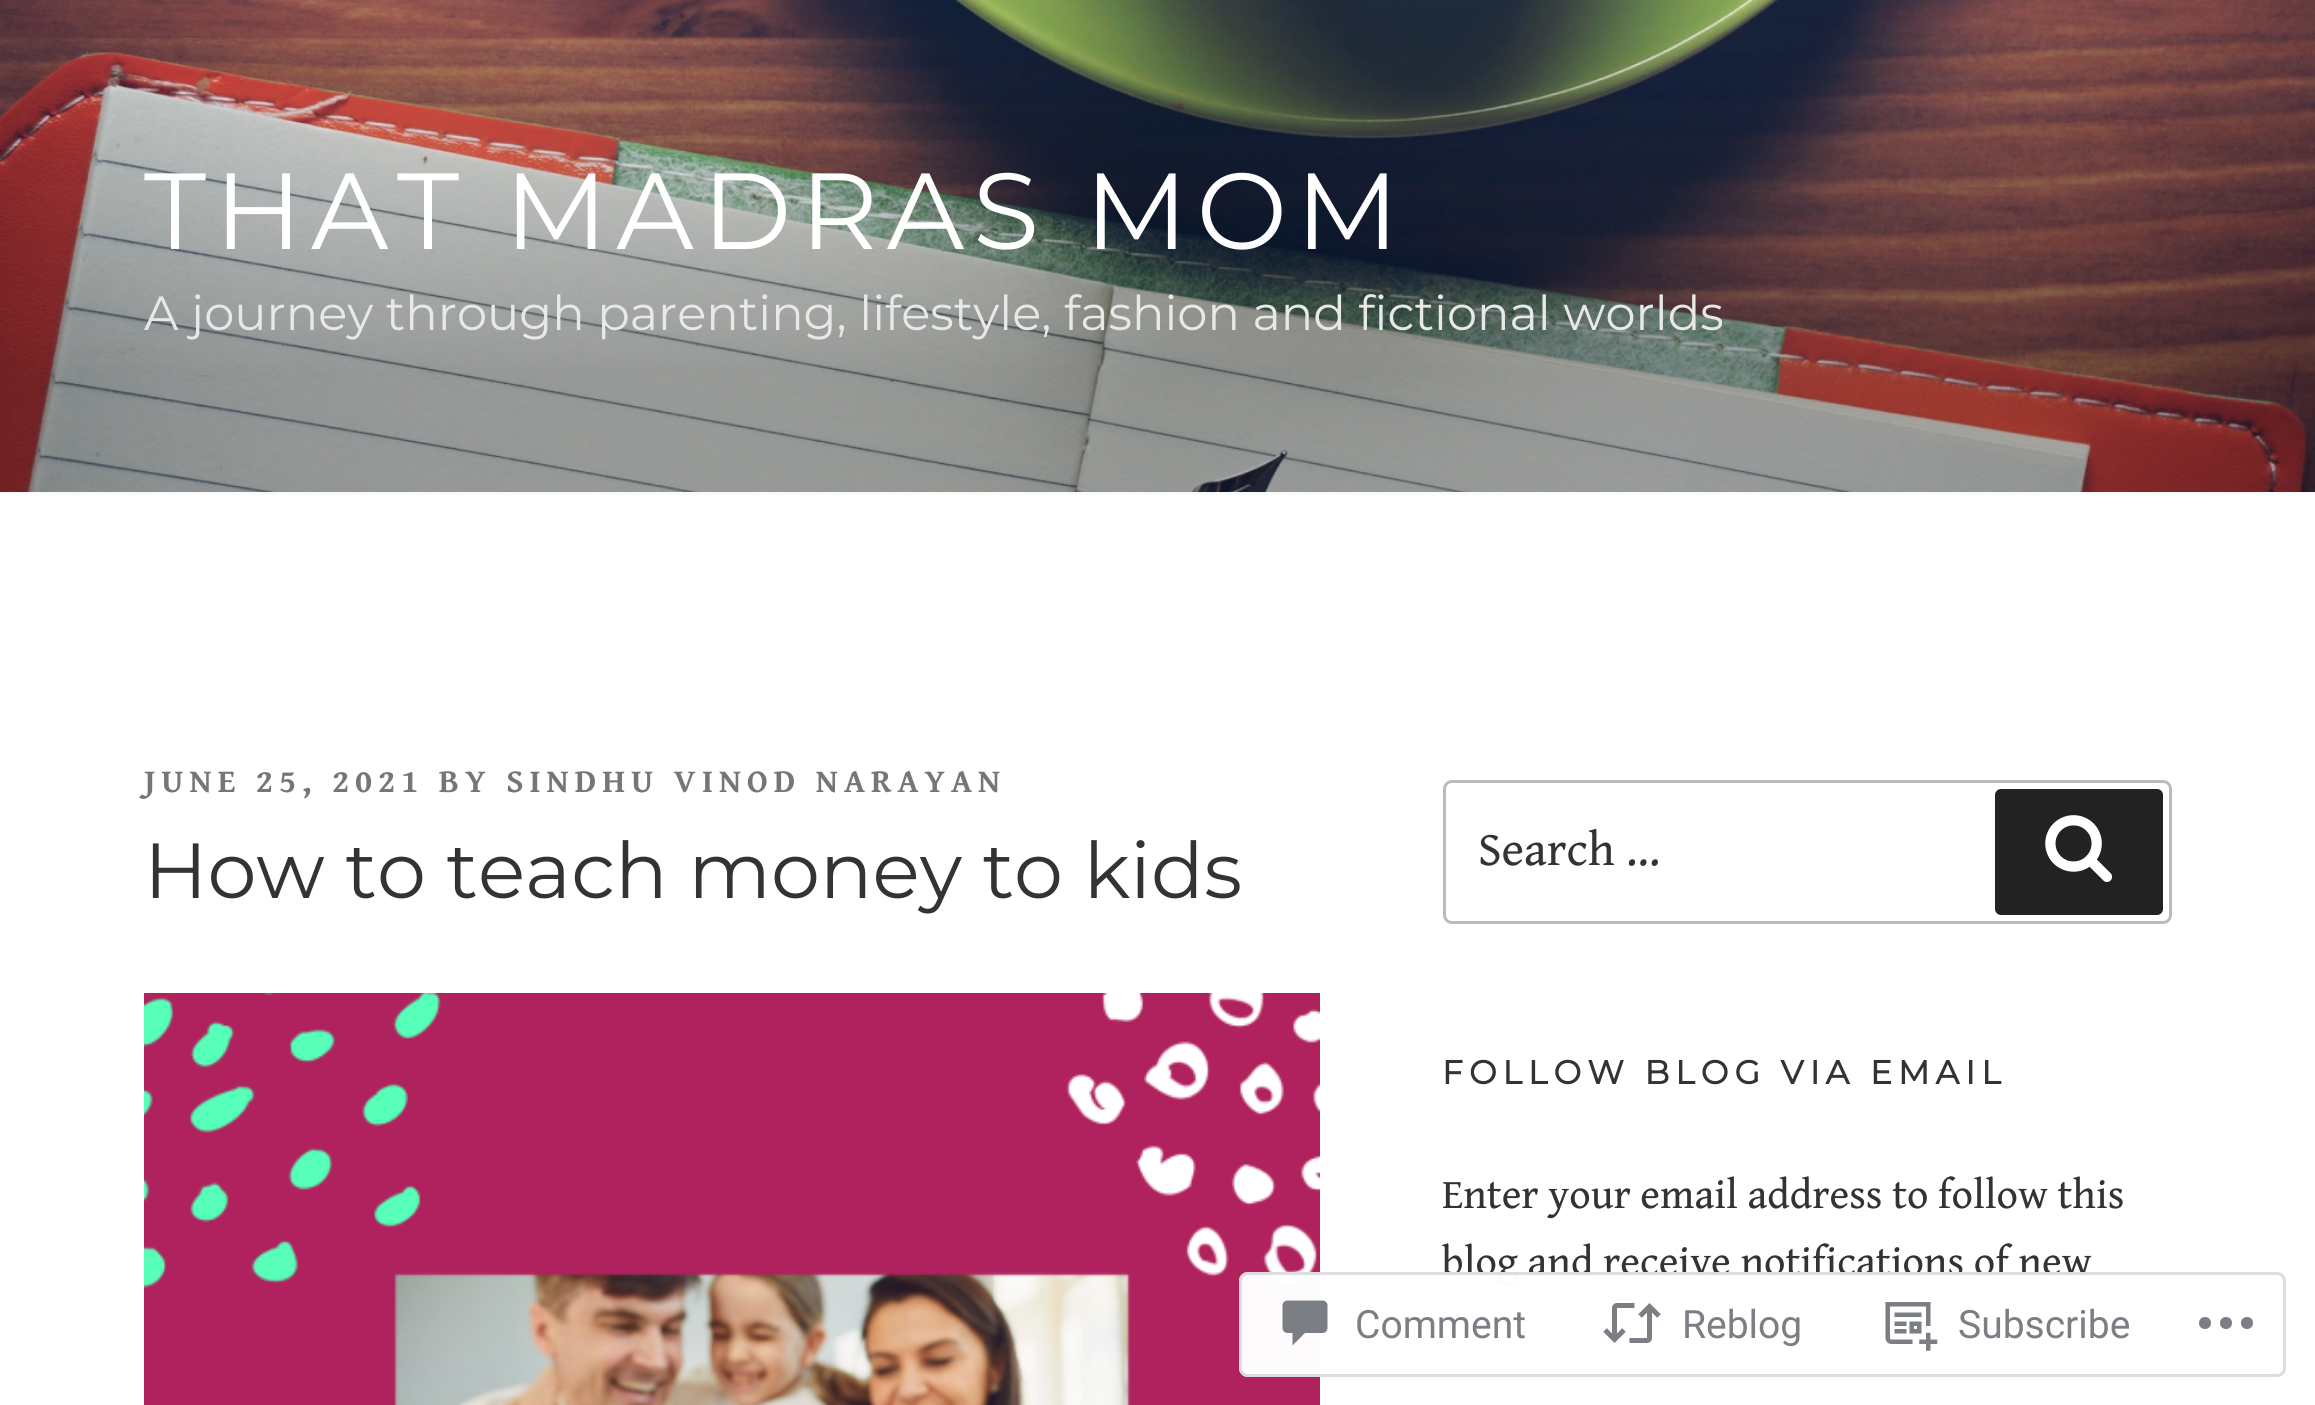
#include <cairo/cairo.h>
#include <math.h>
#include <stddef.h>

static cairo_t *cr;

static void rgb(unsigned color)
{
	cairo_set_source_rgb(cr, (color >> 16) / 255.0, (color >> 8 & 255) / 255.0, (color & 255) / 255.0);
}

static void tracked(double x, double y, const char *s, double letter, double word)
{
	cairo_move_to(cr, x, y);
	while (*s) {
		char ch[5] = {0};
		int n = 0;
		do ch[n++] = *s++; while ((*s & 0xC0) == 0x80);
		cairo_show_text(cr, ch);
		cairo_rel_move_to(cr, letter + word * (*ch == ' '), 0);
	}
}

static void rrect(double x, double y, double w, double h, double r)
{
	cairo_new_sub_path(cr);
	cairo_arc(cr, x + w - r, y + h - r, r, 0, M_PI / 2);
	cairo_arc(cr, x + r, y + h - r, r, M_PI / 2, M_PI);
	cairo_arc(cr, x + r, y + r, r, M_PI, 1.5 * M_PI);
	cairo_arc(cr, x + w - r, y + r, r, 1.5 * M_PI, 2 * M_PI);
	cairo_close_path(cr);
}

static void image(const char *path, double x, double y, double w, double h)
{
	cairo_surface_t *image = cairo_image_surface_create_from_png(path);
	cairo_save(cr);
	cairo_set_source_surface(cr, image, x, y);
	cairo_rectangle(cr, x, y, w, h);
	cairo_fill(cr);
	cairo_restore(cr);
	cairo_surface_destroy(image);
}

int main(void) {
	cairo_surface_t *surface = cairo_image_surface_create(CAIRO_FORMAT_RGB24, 2315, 1405);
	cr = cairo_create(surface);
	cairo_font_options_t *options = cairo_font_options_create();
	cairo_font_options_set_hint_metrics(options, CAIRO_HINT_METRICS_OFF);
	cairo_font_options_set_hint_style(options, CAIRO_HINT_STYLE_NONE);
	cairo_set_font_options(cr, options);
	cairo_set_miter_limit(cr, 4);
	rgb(0xffffff);
	cairo_paint(cr);
	rgb(0xfafafa);
	cairo_rectangle(cr, 0, 492, 2315, 3);
	cairo_fill(cr);
	image("img/1.png", 0, 0, 2315, 492);
	image("img/2.png", 144, 993, 1176, 412);
	rrect(1444.5, 781.5, 726, 141, 7.5);
	rgb(0xbbbbbb);
	cairo_set_line_width(cr, 3);
	cairo_stroke(cr);
	rgb(0x222222);
	rrect(1995, 789, 168, 126, 6);
	cairo_fill(cr);
	image("img/3.png", 2045, 815, 68, 67);
	cairo_select_font_face(cr, "Montserrat Thin", CAIRO_FONT_SLANT_NORMAL, CAIRO_FONT_WEIGHT_NORMAL);
	cairo_set_font_size(cr, 108);
	rgb(0xffffff);
	tracked(144, 249, "THAT MADRAS MOM", 8.6, 0);
	cairo_set_font_size(cr, 48);
	rgb(0xe7e8e7);
	cairo_move_to(cr, 144, 330);
	cairo_show_text(cr, "A journey through parenting, lifestyle, fashion and fictional worlds");
	cairo_select_font_face(cr, "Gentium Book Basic", CAIRO_FONT_SLANT_NORMAL, CAIRO_FONT_WEIGHT_BOLD);
	cairo_set_font_size(cr, 33);
	rgb(0x767676);
	tracked(144, 792, "JUNE 25, 2021 BY SINDHU VINOD NARAYAN", 6, 0);
	cairo_select_font_face(cr, "Montserrat Thin", CAIRO_FONT_SLANT_NORMAL, CAIRO_FONT_WEIGHT_NORMAL);
	cairo_set_font_size(cr, 78);
	rgb(0x333333);
	cairo_move_to(cr, 144, 898);
	cairo_show_text(cr, "How to teach money to kids");
	cairo_select_font_face(cr, "Gentium Book Basic", CAIRO_FONT_SLANT_NORMAL, CAIRO_FONT_WEIGHT_NORMAL);
	cairo_set_font_size(cr, 48);
	cairo_move_to(cr, 1478, 865);
	cairo_show_text(cr, "Search …");
	cairo_select_font_face(cr, "Montserrat", CAIRO_FONT_SLANT_NORMAL, CAIRO_FONT_WEIGHT_BOLD);
	cairo_set_font_size(cr, 33);
	tracked(1442, 1084, "FOLLOW BLOG VIA EMAIL", 6, 0);
	cairo_select_font_face(cr, "Gentium Book Basic", CAIRO_FONT_SLANT_NORMAL, CAIRO_FONT_WEIGHT_NORMAL);
	cairo_set_font_size(cr, 42);
	cairo_move_to(cr, 1442, 1208);
	cairo_show_text(cr, "Enter your email address to follow this");
	cairo_move_to(cr, 1442, 1275);
	cairo_show_text(cr, "blog and receive notifications of new");
	cairo_set_source_rgba(cr, 1, 1, 1, 0.98);
	rrect(1239, 1272, 1047, 105, 9);
	cairo_fill(cr);
	rrect(1240.5, 1273.5, 1044, 102, 7.5);
	cairo_set_source_rgba(cr, 0.863, 0.863, 0.871, 0.98);
	cairo_stroke(cr);
	image("img/4.png", 1282, 1300, 46, 46);
	cairo_select_font_face(cr, "Roboto", CAIRO_FONT_SLANT_NORMAL, CAIRO_FONT_WEIGHT_NORMAL);
	cairo_set_font_size(cr, 39);
	rgb(0x7b7f84);
	cairo_move_to(cr, 1355, 1338);
	cairo_show_text(cr, "Comment");
	image("img/5.png", 1603, 1303, 58, 40);
	cairo_move_to(cr, 1682, 1338);
	cairo_show_text(cr, "Reblog");
	image("img/6.png", 1885, 1302, 53, 49);
	cairo_move_to(cr, 1958, 1338);
	cairo_show_text(cr, "Subscribe");
	rgb(0x7b7f85);
	cairo_new_path(cr);
	cairo_move_to(cr, 2211, 1323);
	cairo_curve_to(cr, 2211, 1331, 2199, 1331, 2199, 1323);
	cairo_curve_to(cr, 2199, 1315, 2211, 1315, 2211, 1323);
	cairo_close_path(cr);
	cairo_move_to(cr, 2247, 1317);
	cairo_curve_to(cr, 2239, 1317, 2239, 1329, 2247, 1329);
	cairo_curve_to(cr, 2255, 1329, 2255, 1317, 2247, 1317);
	cairo_close_path(cr);
	cairo_move_to(cr, 2226, 1317);
	cairo_curve_to(cr, 2218, 1317, 2218, 1329, 2226, 1329);
	cairo_curve_to(cr, 2234, 1329, 2234, 1317, 2226, 1317);
	cairo_close_path(cr);
	cairo_fill(cr);
	cairo_surface_write_to_png(surface, "page.png");
	cairo_font_options_destroy(options);
	cairo_destroy(cr);
	cairo_surface_destroy(surface);
	return 0;
}
